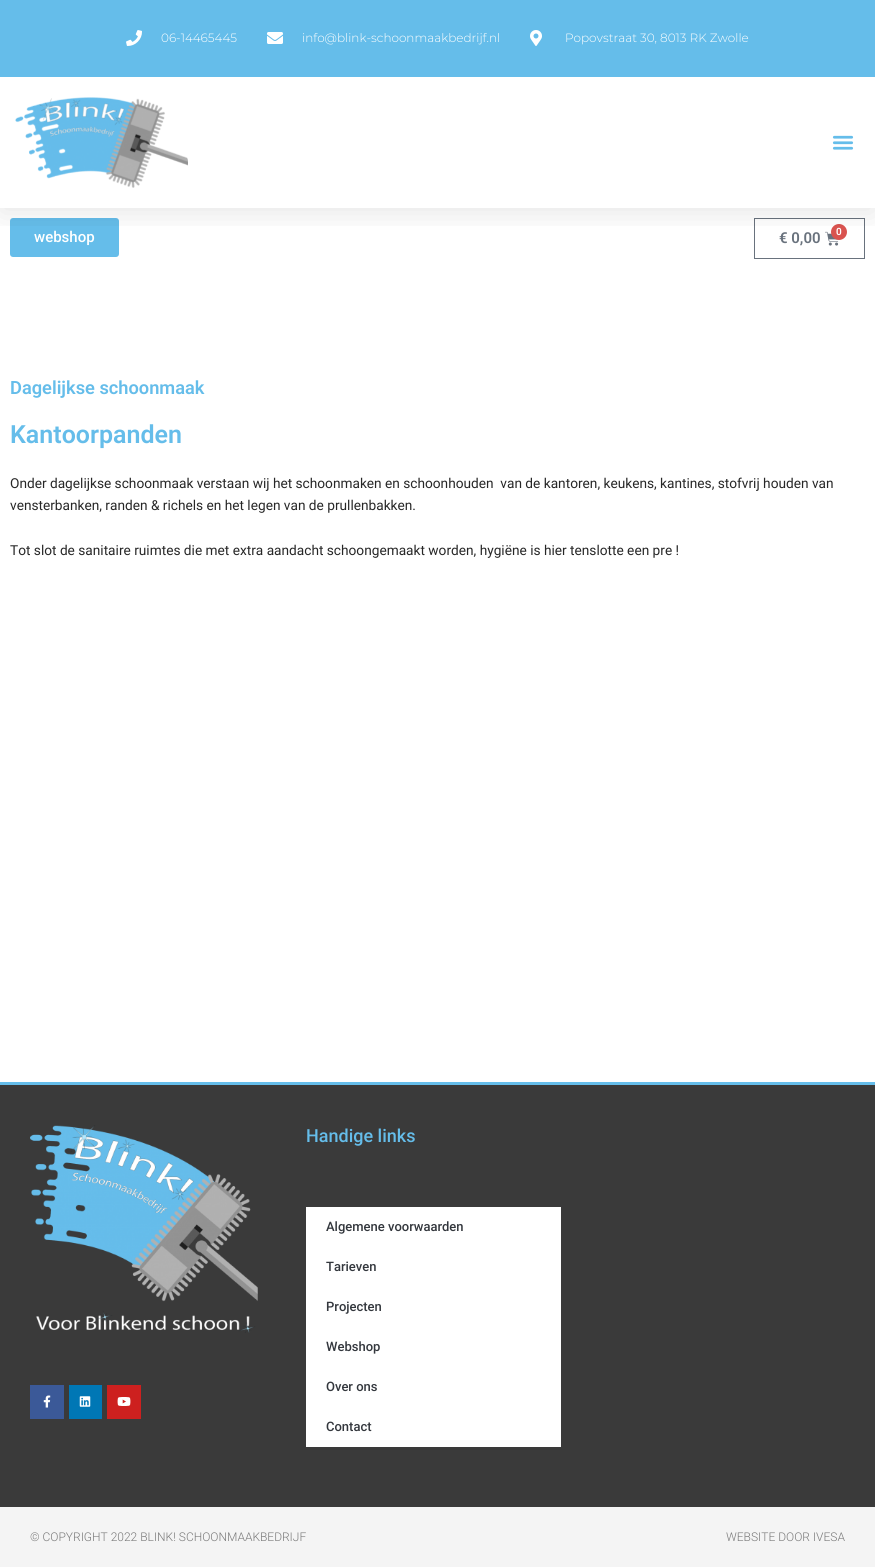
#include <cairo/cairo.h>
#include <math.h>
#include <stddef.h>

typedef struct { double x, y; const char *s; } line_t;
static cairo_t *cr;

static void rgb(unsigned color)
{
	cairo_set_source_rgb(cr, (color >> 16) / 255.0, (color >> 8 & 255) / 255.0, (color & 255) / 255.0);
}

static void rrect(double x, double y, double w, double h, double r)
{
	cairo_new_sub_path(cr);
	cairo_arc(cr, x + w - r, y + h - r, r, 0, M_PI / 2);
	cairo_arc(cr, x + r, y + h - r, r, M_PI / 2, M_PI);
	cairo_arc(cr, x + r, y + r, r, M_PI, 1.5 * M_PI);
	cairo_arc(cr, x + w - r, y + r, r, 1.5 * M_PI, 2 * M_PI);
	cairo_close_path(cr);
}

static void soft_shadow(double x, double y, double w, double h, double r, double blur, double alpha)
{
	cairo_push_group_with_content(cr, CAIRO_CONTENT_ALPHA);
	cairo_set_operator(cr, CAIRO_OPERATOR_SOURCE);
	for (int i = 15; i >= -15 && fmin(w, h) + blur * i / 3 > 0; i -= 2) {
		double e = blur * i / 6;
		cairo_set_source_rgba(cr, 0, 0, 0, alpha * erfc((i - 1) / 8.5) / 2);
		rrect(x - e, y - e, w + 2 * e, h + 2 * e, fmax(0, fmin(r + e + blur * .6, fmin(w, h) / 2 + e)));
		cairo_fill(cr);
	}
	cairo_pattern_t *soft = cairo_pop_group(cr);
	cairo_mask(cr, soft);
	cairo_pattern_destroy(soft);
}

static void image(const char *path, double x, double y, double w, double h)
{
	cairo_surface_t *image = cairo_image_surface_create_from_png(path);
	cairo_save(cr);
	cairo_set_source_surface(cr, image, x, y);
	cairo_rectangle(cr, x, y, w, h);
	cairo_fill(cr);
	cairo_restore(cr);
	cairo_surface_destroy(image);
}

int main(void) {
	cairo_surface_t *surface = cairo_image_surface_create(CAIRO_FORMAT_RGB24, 875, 1567);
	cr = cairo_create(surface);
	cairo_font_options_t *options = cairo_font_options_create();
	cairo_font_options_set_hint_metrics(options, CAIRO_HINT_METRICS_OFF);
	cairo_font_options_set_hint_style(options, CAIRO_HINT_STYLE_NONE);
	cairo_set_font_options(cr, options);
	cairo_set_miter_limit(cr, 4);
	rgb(0xffffff);
	cairo_paint(cr);
	rgb(0x65bdea);
	rrect(10, 218, 109, 39, 3);
	cairo_fill(cr);
	cairo_rectangle(cr, 754.5, 218.5, 110, 40);
	rgb(0x69727d);
	cairo_set_line_width(cr, 1);
	cairo_stroke(cr);
	image("img/6.png", 825, 231, 14, 15);
	rgb(0xd9534f);
	cairo_arc(cr, 839, 232, 8, 0, 2 * M_PI);
	cairo_fill(cr);
	cairo_save(cr);
	cairo_rectangle(cr, 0, 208, 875, 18);
	cairo_clip(cr);
	rgb(0x000000);
	soft_shadow(0, 5, 875, 208, 0, 15, 0.1);
	cairo_restore(cr);
	rgb(0x65bdea);
	cairo_rectangle(cr, 0, 0, 875, 77);
	cairo_fill(cr);
	image("img/1.png", 126, 30, 16, 16);
	image("img/2.png", 267, 32, 16, 12);
	image("img/3.png", 530, 30, 12, 16);
	image("img/4.png", 15, 97, 173, 91);
	image("img/5.png", 832, 135, 22, 15);
	rgb(0x3a3a3a);
	cairo_rectangle(cr, 0, 1085, 875, 422);
	cairo_fill(cr);
	rgb(0x65bdea);
	cairo_rectangle(cr, 0, 1082, 875, 3);
	cairo_fill(cr);
	image("img/7.png", 30, 1125, 228, 208);
	rgb(0x3b5998);
	cairo_rectangle(cr, 30, 1385, 34, 34);
	cairo_fill(cr);
	image("img/8.png", 43, 1395, 8, 13);
	rgb(0x0077b5);
	cairo_rectangle(cr, 69, 1385, 33, 34);
	cairo_fill(cr);
	image("img/9.png", 79, 1396, 12, 11);
	rgb(0xcd201f);
	cairo_rectangle(cr, 107, 1385, 34, 34);
	cairo_fill(cr);
	image("img/10.png", 117, 1397, 14, 9);
	rgb(0xffffff);
	cairo_rectangle(cr, 306, 1207, 255, 240);
	cairo_fill(cr);
	rgb(0xf4f4f4);
	cairo_rectangle(cr, 0, 1507, 875, 60);
	cairo_fill(cr);
	cairo_select_font_face(cr, "Montserrat Light", CAIRO_FONT_SLANT_NORMAL, CAIRO_FONT_WEIGHT_NORMAL);
	cairo_set_font_size(cr, 12);
	rgb(0xffffff);
	{
		static const line_t items[] = {
			{161, 42, "06-14465445"},
			{302, 42, "info@blink-schoonmaakbedrijf.nl"},
			{565, 42, "Popovstraat 30, 8013 RK Zwolle"},
		};
		for (size_t i = 0; i < sizeof items / sizeof *items; i++) {
			cairo_move_to(cr, items[i].x, items[i].y);
			cairo_show_text(cr, items[i].s);
		}
	}
	cairo_select_font_face(cr, "Roboto Medium", CAIRO_FONT_SLANT_NORMAL, CAIRO_FONT_WEIGHT_NORMAL);
	cairo_set_font_size(cr, 15);
	cairo_move_to(cr, 34, 242);
	cairo_show_text(cr, "webshop");
	cairo_select_font_face(cr, "Roboto SemiBold", CAIRO_FONT_SLANT_NORMAL, CAIRO_FONT_WEIGHT_NORMAL);
	rgb(0x69727d);
	cairo_move_to(cr, 779, 243);
	cairo_show_text(cr, "€ 0,00");
	cairo_set_font_size(cr, 10);
	rgb(0xffffff);
	cairo_move_to(cr, 836, 235);
	cairo_show_text(cr, "0");
	cairo_set_font_size(cr, 18.25);
	rgb(0x65bdea);
	cairo_move_to(cr, 10, 394);
	cairo_show_text(cr, "Dagelijkse schoonmaak");
	cairo_set_font_size(cr, 25);
	cairo_move_to(cr, 10, 443);
	cairo_show_text(cr, "Kantoorpanden");
	cairo_select_font_face(cr, "Roboto", CAIRO_FONT_SLANT_NORMAL, CAIRO_FONT_WEIGHT_NORMAL);
	cairo_set_font_size(cr, 13.68);
	rgb(0x272727);
	{
		static const line_t items[] = {
			{10, 488, "Onder dagelijkse schoonmaak verstaan wij het schoonmaken en schoonhouden  van de kantoren, keukens, kantines, stofvrij houden van"},
			{10, 510, "vensterbanken, randen & richels en het legen van de prullenbakken."},
			{10, 555, "Tot slot de sanitaire ruimtes die met extra aandacht schoongemaakt worden, hygiëne is hier tenslotte een pre !"},
		};
		for (size_t i = 0; i < sizeof items / sizeof *items; i++) {
			cairo_move_to(cr, items[i].x, items[i].y);
			cairo_show_text(cr, items[i].s);
		}
	}
	cairo_select_font_face(cr, "Roboto Medium", CAIRO_FONT_SLANT_NORMAL, CAIRO_FONT_WEIGHT_NORMAL);
	cairo_set_font_size(cr, 18);
	rgb(0x65bdea);
	cairo_move_to(cr, 306, 1142);
	cairo_show_text(cr, "Handige links");
	cairo_set_font_size(cr, 13);
	rgb(0x33373d);
	{
		static const line_t items[] = {
			{326, 1231, "Algemene voorwaarden"},
			{326, 1271, "Tarieven"},
			{326, 1311, "Projecten"},
			{326, 1351, "Webshop"},
			{326, 1391, "Over ons"},
			{326, 1431, "Contact"},
		};
		for (size_t i = 0; i < sizeof items / sizeof *items; i++) {
			cairo_move_to(cr, items[i].x, items[i].y);
			cairo_show_text(cr, items[i].s);
		}
	}
	cairo_select_font_face(cr, "Roboto Light", CAIRO_FONT_SLANT_NORMAL, CAIRO_FONT_WEIGHT_NORMAL);
	cairo_set_font_size(cr, 12);
	rgb(0x7a7a7a);
	cairo_move_to(cr, 30, 1541);
	cairo_show_text(cr, "© COPYRIGHT 2022 BLINK! SCHOONMAAKBEDRIJF");
	cairo_move_to(cr, 726, 1541);
	cairo_show_text(cr, "WEBSITE DOOR IVESA");
	cairo_surface_write_to_png(surface, "page.png");
	cairo_font_options_destroy(options);
	cairo_destroy(cr);
	cairo_surface_destroy(surface);
	return 0;
}
